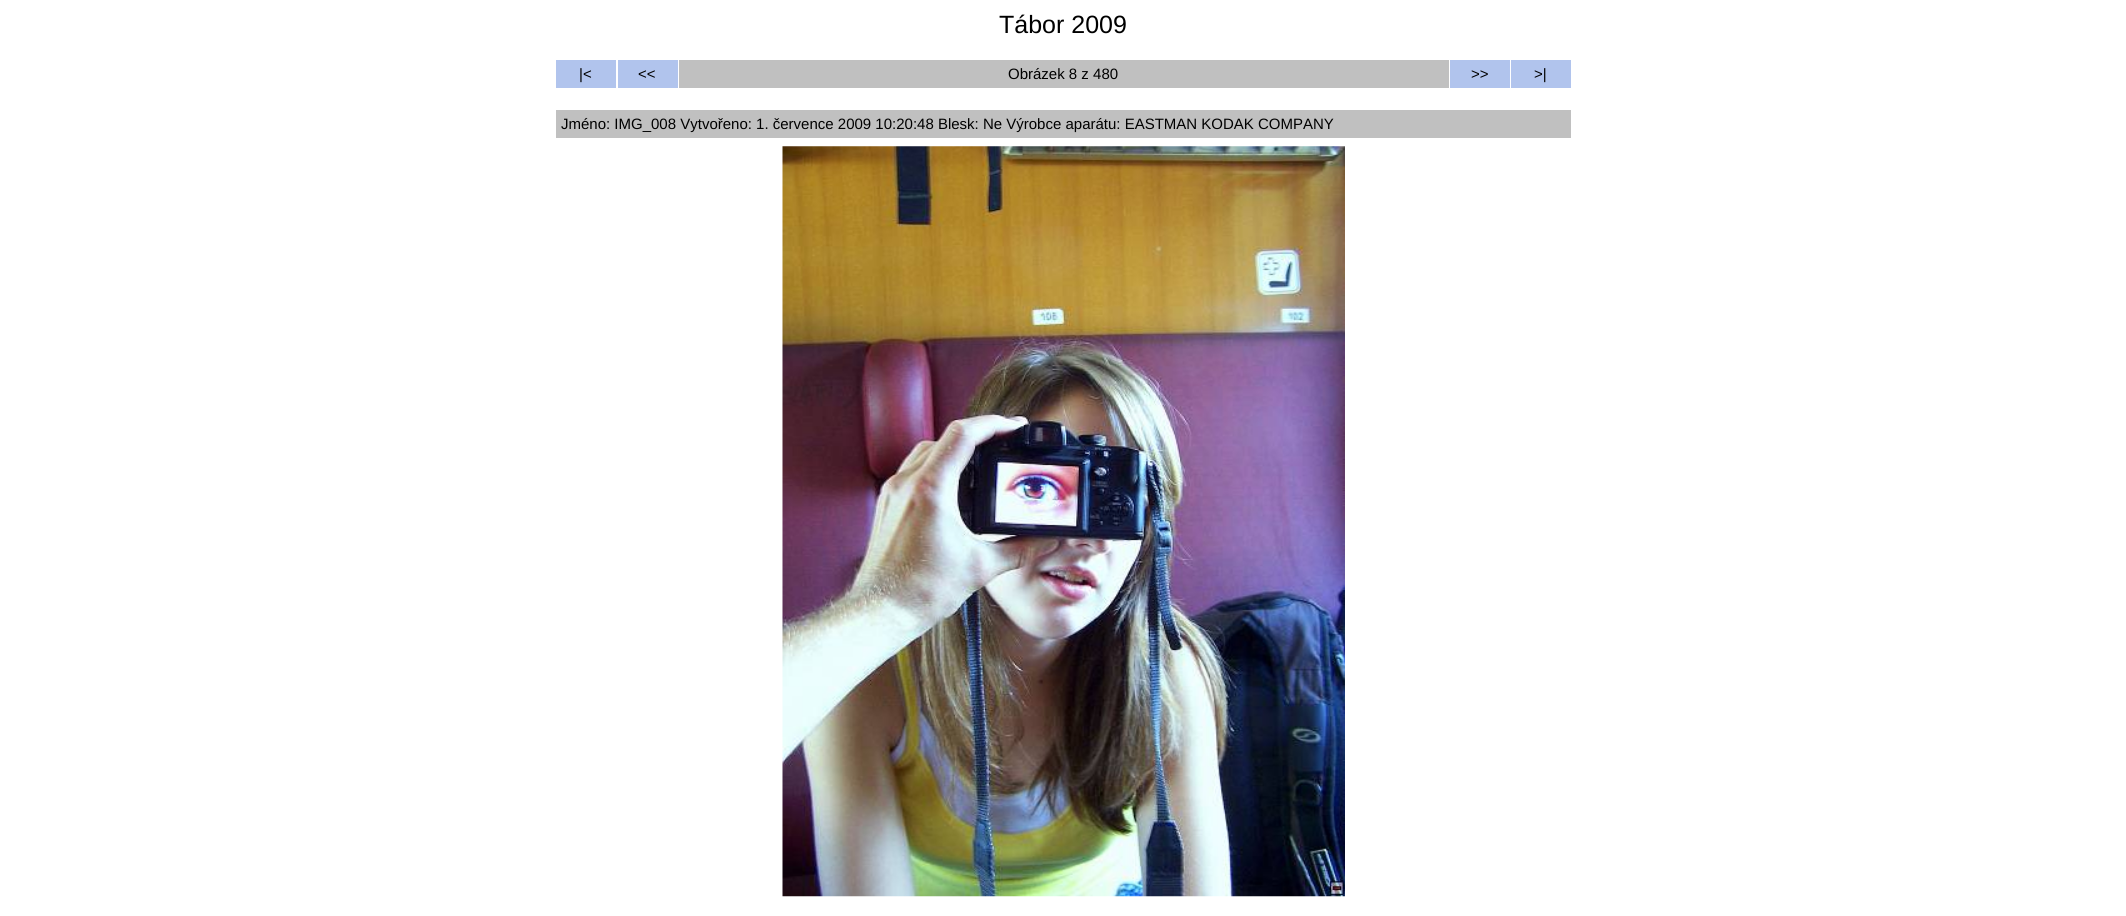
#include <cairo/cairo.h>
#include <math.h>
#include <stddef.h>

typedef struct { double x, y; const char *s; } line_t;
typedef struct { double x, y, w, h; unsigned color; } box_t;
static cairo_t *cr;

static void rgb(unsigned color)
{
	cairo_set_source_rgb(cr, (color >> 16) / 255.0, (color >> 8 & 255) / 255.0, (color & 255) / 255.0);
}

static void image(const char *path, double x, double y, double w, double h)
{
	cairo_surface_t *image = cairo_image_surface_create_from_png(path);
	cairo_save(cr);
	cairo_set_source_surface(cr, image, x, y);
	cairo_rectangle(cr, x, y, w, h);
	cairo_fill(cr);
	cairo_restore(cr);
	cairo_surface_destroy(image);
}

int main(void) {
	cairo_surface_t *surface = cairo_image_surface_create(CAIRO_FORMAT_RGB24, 2126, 916);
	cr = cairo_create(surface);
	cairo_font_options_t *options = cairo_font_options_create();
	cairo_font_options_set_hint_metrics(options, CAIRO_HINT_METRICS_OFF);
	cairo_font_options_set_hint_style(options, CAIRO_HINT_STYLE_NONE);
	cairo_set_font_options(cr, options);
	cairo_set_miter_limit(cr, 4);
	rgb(0xffffff);
	cairo_paint(cr);
	{
		static const box_t items[] = {
			{556, 60, 60, 28, 0xb1c4ed},
			{618, 60, 60, 28, 0xb1c4ed},
			{679, 60, 770, 28, 0xc0c0c0},
			{1450, 60, 60, 28, 0xb1c4ed},
			{1511, 60, 60, 28, 0xb1c4ed},
			{556, 110, 1015, 28, 0xc0c0c0},
		};
		for (size_t i = 0; i < sizeof items / sizeof *items; i++) {
			rgb(items[i].color);
			cairo_rectangle(cr, items[i].x, items[i].y, items[i].w, items[i].h);
			cairo_fill(cr);
		}
	}
	image("img/1.png", 782, 146, 563, 751);
	cairo_select_font_face(cr, "Liberation Sans", CAIRO_FONT_SLANT_NORMAL, CAIRO_FONT_WEIGHT_NORMAL);
	cairo_set_font_size(cr, 25);
	rgb(0x000000);
	cairo_move_to(cr, 999, 33);
	cairo_show_text(cr, "Tábor 2009");
	cairo_set_font_size(cr, 15);
	{
		static const line_t items[] = {
			{579, 79, "|<"},
			{638, 79, "<<"},
			{1008, 79, "Obrázek 8 z 480"},
			{1471, 79, ">>"},
			{1534, 79, ">|"},
			{561, 129, "Jméno: IMG_008 Vytvořeno: 1. července 2009 10:20:48 Blesk: Ne Výrobce aparátu: EASTMAN KODAK COMPANY"},
		};
		for (size_t i = 0; i < sizeof items / sizeof *items; i++) {
			cairo_move_to(cr, items[i].x, items[i].y);
			cairo_show_text(cr, items[i].s);
		}
	}
	cairo_surface_write_to_png(surface, "page.png");
	cairo_font_options_destroy(options);
	cairo_destroy(cr);
	cairo_surface_destroy(surface);
	return 0;
}
